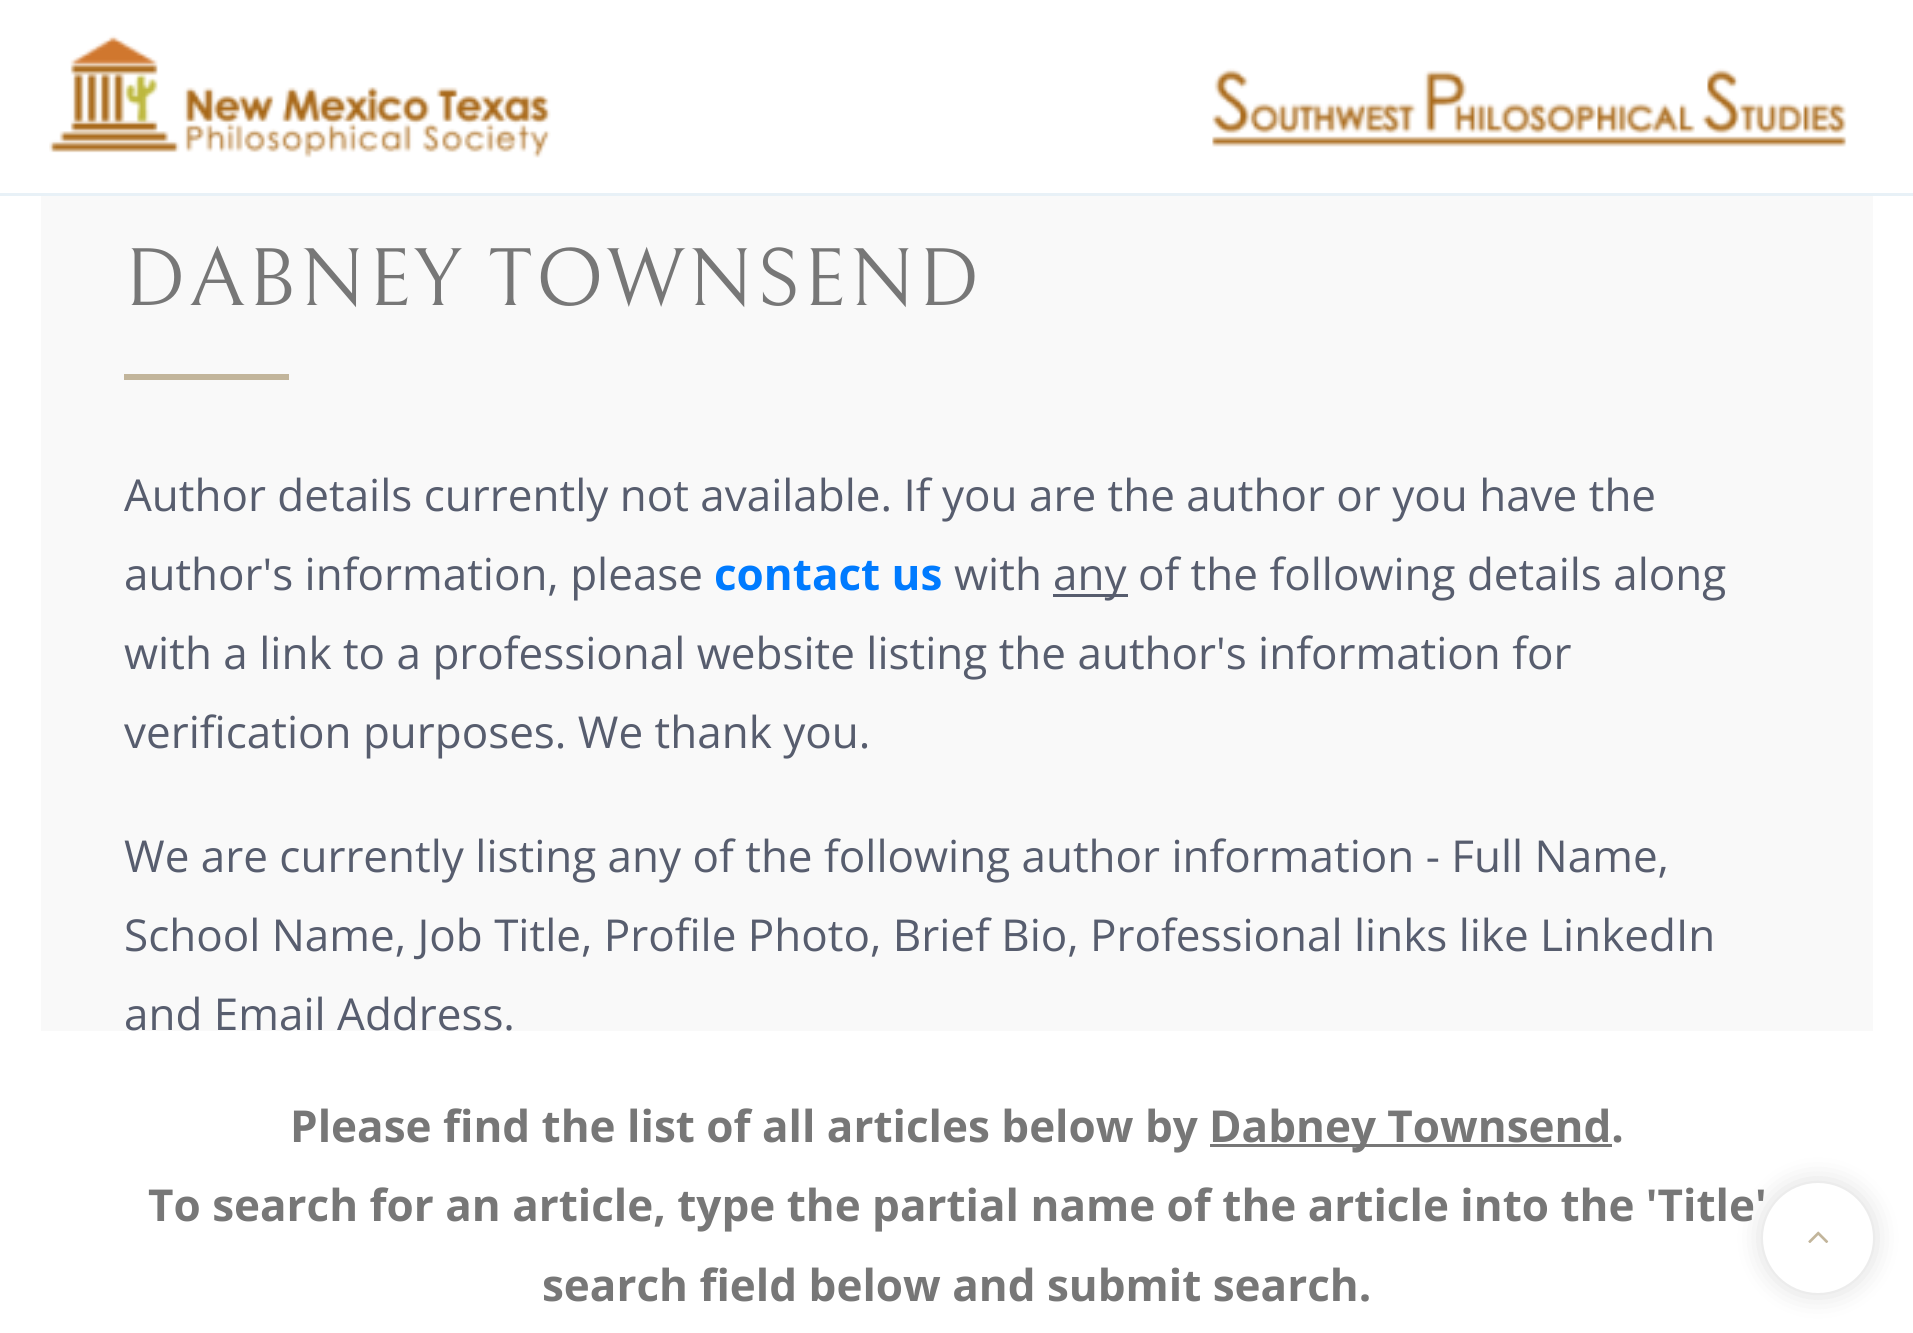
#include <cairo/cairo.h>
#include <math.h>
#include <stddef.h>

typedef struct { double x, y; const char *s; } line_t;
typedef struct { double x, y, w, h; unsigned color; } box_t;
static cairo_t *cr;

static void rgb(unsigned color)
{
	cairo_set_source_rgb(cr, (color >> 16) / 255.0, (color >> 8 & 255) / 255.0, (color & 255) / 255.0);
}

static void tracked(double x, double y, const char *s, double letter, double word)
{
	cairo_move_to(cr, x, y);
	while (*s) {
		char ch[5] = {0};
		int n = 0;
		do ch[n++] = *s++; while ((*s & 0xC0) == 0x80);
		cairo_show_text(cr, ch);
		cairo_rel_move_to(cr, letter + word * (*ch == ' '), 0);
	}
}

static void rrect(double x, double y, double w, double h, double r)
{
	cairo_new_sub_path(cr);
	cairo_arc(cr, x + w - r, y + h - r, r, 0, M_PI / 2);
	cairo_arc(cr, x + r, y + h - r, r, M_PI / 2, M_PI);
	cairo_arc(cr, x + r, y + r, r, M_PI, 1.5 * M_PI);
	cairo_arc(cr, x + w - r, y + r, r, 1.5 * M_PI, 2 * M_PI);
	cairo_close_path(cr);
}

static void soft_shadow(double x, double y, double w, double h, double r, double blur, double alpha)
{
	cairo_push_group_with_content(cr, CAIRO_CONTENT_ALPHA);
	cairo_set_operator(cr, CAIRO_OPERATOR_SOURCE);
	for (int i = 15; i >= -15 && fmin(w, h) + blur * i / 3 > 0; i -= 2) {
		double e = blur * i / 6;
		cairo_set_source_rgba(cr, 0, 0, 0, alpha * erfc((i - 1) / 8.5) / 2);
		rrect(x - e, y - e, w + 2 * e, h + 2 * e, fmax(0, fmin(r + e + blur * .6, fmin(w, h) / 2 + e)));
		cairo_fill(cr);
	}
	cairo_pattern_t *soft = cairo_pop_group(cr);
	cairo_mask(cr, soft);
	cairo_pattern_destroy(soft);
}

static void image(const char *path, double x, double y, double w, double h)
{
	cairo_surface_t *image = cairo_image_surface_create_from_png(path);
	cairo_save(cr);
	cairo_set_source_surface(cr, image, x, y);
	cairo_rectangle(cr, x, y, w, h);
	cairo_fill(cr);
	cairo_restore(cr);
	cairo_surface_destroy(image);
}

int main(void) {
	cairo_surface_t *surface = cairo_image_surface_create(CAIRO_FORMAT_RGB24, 1913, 1333);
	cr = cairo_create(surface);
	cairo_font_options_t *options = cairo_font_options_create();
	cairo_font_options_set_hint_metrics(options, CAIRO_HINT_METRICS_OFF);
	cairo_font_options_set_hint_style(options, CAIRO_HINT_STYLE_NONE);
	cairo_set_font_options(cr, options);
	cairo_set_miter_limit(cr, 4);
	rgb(0xffffff);
	cairo_paint(cr);
	rgb(0xe8f1f7);
	cairo_rectangle(cr, 0, 193, 1913, 3);
	cairo_fill(cr);
	image("img/1.png", 49, 35, 502, 123);
	image("img/2.png", 1212, 68, 635, 79);
	{
		static const box_t items[] = {
			{41, 196, 1832, 835, 0xf9f9f9},
			{124, 374, 165, 6, 0xc2b59b},
			{1053, 594, 75, 3, 0x575d6e},
			{1210, 1144, 402, 3, 0x777777},
		};
		for (size_t i = 0; i < sizeof items / sizeof *items; i++) {
			rgb(items[i].color);
			cairo_rectangle(cr, items[i].x, items[i].y, items[i].w, items[i].h);
			cairo_fill(cr);
		}
	}
	rgb(0x000000);
	soft_shadow(1763, 1183, 110, 110, 55, 14, 0.15);
	cairo_select_font_face(cr, "Bellefair", CAIRO_FONT_SLANT_NORMAL, CAIRO_FONT_WEIGHT_NORMAL);
	cairo_set_font_size(cr, 82.5);
	rgb(0x777777);
	tracked(124, 305, "DABNEY TOWNSEND", 2.75, 0);
	cairo_select_font_face(cr, "Open Sans", CAIRO_FONT_SLANT_NORMAL, CAIRO_FONT_WEIGHT_NORMAL);
	cairo_set_font_size(cr, 44);
	rgb(0x575d6e);
	cairo_move_to(cr, 124, 511);
	cairo_show_text(cr, "Author details currently not available. If you are the author or you have the");
	cairo_move_to(cr, 124, 590);
	cairo_show_text(cr, "author's information, please");
	cairo_select_font_face(cr, "Open Sans", CAIRO_FONT_SLANT_NORMAL, CAIRO_FONT_WEIGHT_BOLD);
	rgb(0x007bff);
	cairo_move_to(cr, 714, 590);
	cairo_show_text(cr, "contact us");
	cairo_select_font_face(cr, "Open Sans", CAIRO_FONT_SLANT_NORMAL, CAIRO_FONT_WEIGHT_NORMAL);
	rgb(0x575d6e);
	{
		static const line_t items[] = {
			{954, 590, "with"},
			{1053, 590, "any of the following details along"},
			{124, 669, "with a link to a professional website listing the author's information for"},
			{124, 748, "verification purposes. We thank you."},
			{124, 872, "We are currently listing any of the following author information - Full Name,"},
			{124, 951, "School Name, Job Title, Profile Photo, Brief Bio, Professional links like LinkedIn"},
			{124, 1030, "and Email Address."},
		};
		for (size_t i = 0; i < sizeof items / sizeof *items; i++) {
			cairo_move_to(cr, items[i].x, items[i].y);
			cairo_show_text(cr, items[i].s);
		}
	}
	cairo_select_font_face(cr, "Open Sans", CAIRO_FONT_SLANT_NORMAL, CAIRO_FONT_WEIGHT_BOLD);
	rgb(0x777777);
	{
		static const line_t items[] = {
			{290, 1142, "Please find the list of all articles below by"},
			{1209, 1142, "Dabney Townsend."},
			{148, 1221, "To search for an article, type the partial name of the article into the 'Title'"},
			{542, 1301, "search field below and submit search."},
		};
		for (size_t i = 0; i < sizeof items / sizeof *items; i++) {
			cairo_move_to(cr, items[i].x, items[i].y);
			cairo_show_text(cr, items[i].s);
		}
	}
	rgb(0xffffff);
	cairo_new_path(cr);
	cairo_arc(cr, 1818, 1238, 55, 0, 2 * M_PI);
	cairo_fill(cr);
	image("img/3.png", 1808, 1231, 21, 12);
	cairo_surface_write_to_png(surface, "page.png");
	cairo_font_options_destroy(options);
	cairo_destroy(cr);
	cairo_surface_destroy(surface);
	return 0;
}
